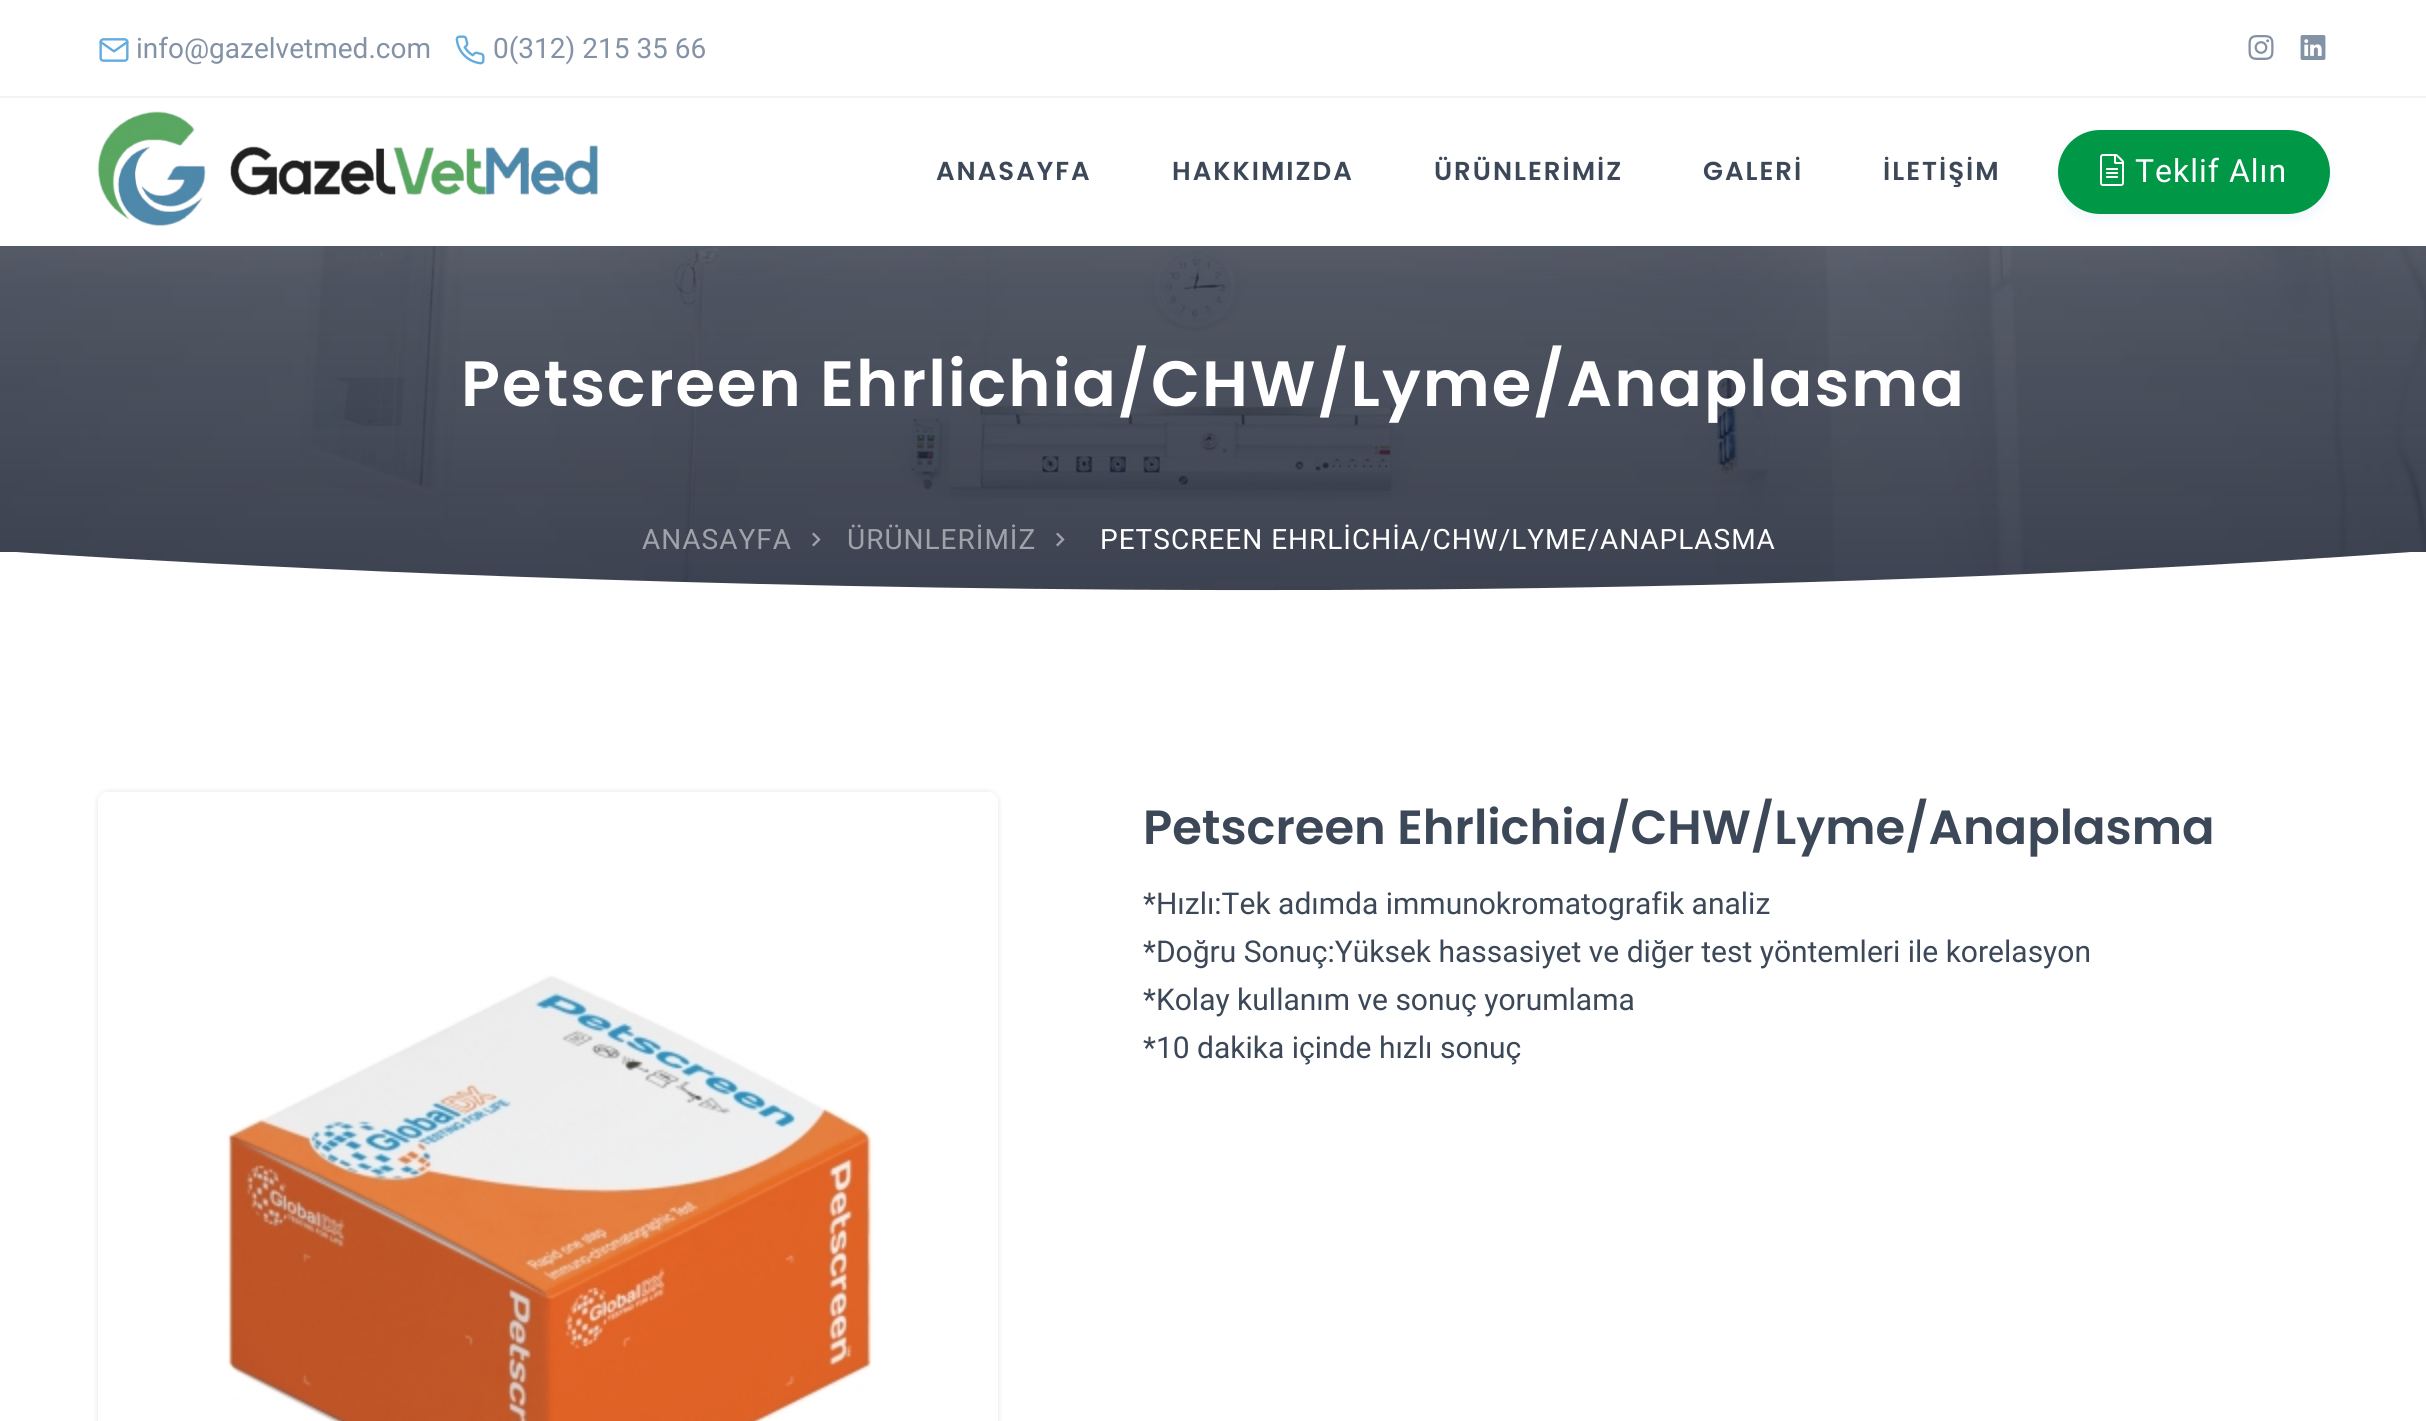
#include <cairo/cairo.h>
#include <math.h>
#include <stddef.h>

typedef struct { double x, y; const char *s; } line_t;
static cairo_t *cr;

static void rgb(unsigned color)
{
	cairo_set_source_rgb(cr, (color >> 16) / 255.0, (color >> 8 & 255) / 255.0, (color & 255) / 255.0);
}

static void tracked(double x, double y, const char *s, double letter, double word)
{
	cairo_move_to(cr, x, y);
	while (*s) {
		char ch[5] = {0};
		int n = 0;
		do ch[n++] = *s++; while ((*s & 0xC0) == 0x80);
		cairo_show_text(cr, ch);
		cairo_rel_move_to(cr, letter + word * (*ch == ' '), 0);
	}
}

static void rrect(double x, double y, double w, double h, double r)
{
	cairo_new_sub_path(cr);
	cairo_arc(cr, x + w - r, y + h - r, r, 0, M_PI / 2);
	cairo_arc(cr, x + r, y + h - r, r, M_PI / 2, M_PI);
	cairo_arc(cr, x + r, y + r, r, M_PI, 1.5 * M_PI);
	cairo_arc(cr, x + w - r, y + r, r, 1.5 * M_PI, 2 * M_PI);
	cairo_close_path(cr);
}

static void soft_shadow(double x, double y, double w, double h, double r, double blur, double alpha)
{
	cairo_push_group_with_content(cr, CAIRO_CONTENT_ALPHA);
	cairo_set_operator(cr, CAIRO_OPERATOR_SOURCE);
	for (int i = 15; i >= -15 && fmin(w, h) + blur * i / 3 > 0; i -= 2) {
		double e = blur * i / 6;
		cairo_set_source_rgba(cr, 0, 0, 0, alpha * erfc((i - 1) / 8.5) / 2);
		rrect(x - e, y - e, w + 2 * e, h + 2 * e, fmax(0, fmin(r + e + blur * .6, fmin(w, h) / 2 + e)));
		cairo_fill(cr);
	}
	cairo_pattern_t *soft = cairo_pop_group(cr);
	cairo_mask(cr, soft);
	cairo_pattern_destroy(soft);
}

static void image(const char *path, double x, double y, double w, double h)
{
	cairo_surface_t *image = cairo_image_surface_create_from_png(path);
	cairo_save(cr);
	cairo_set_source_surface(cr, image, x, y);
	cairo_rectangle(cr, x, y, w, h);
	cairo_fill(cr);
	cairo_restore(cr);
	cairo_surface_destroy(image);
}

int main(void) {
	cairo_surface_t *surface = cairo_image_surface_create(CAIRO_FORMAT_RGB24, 2426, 1421);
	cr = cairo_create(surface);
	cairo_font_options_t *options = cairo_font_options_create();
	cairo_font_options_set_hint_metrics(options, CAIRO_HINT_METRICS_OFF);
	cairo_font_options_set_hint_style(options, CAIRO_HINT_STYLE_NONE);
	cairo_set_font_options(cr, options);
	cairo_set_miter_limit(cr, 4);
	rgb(0xffffff);
	cairo_paint(cr);
	image("img/1.png", 99, 38, 30, 24);
	image("img/2.png", 455, 35, 30, 30);
	image("img/3.png", 2248, 35, 26, 25);
	image("img/4.png", 2300, 35, 26, 25);
	rgb(0xf3f3f3);
	cairo_rectangle(cr, 0, 96, 2426, 2);
	cairo_fill(cr);
	image("img/5.png", 97, 111, 501, 115);
	rgb(0x63acdf);
	soft_shadow(2058, 136, 272, 84, 42, 5, 0.1);
	rgb(0x009746);
	rrect(2059, 131, 270, 82, 41);
	cairo_fill_preserve(cr);
	cairo_stroke(cr);
	image("img/6.png", 2100, 154, 24, 32);
	image("img/7.png", 0, 246, 2426, 345);
	image("img/8.png", 812, 532, 9, 15);
	image("img/8.png", 1056, 532, 9, 15);
	cairo_save(cr);
	cairo_rectangle(cr, 0, 552, 2426, 42);
	cairo_clip(cr);
	rgb(0xffffff);
	cairo_new_path(cr);
	cairo_move_to(cr, -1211, 632);
	cairo_line_to(cr, 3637, 632);
	cairo_line_to(cr, 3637, 551);
	cairo_line_to(cr, 2425, 551);
	cairo_curve_to(cr, 1217, 639, 1, 551, 1, 551);
	cairo_line_to(cr, -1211, 551);
	cairo_close_path(cr);
	cairo_fill(cr);
	cairo_restore(cr);
	cairo_save(cr);
	cairo_set_fill_rule(cr, CAIRO_FILL_RULE_EVEN_ODD);
	cairo_new_path(cr);
	cairo_move_to(cr, 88, 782);
	cairo_line_to(cr, 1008, 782);
	cairo_line_to(cr, 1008, 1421);
	cairo_line_to(cr, 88, 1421);
	cairo_close_path(cr);
	cairo_move_to(cr, 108, 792);
	cairo_line_to(cr, 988, 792);
	cairo_curve_to(cr, 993.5, 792, 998, 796.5, 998, 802);
	cairo_line_to(cr, 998, 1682);
	cairo_curve_to(cr, 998, 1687.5, 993.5, 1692, 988, 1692);
	cairo_line_to(cr, 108, 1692);
	cairo_curve_to(cr, 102.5, 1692, 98, 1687.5, 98, 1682);
	cairo_line_to(cr, 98, 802);
	cairo_curve_to(cr, 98, 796.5, 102.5, 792, 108, 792);
	cairo_close_path(cr);
	cairo_clip(cr);
	rgb(0x3c4858);
	soft_shadow(98, 792, 900, 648, 10, 3, 0.15);
	cairo_restore(cr);
	image("img/9.png", 227, 975, 646, 446);
	cairo_select_font_face(cr, "Roboto", CAIRO_FONT_SLANT_NORMAL, CAIRO_FONT_WEIGHT_NORMAL);
	cairo_set_font_size(cr, 28);
	rgb(0x8492a6);
	cairo_move_to(cr, 136, 58);
	cairo_show_text(cr, "info@gazelvetmed.com");
	cairo_move_to(cr, 493, 58);
	cairo_show_text(cr, "0(312) 215 35 66");
	cairo_select_font_face(cr, "Poppins SemiBold", CAIRO_FONT_SLANT_NORMAL, CAIRO_FONT_WEIGHT_NORMAL);
	cairo_set_font_size(cr, 26);
	rgb(0x3c4858);
	{
		static const line_t items[] = {
			{936, 180, "ANASAYFA"},
			{1172, 180, "HAKKIMIZDA"},
			{1434, 180, "ÜRÜNLERİMİZ"},
			{1703, 180, "GALERİ"},
			{1883, 180, "İLETİŞİM"},
		};
		for (size_t i = 0; i < sizeof items / sizeof *items; i++) {
			tracked(items[i].x, items[i].y, items[i].s, 2, 0);
		}
	}
	cairo_select_font_face(cr, "Roboto", CAIRO_FONT_SLANT_NORMAL, CAIRO_FONT_WEIGHT_NORMAL);
	cairo_set_font_size(cr, 32);
	rgb(0xffffff);
	tracked(2135, 182, "Teklif Alın", 1, 0);
	cairo_select_font_face(cr, "Poppins SemiBold", CAIRO_FONT_SLANT_NORMAL, CAIRO_FONT_WEIGHT_NORMAL);
	cairo_set_font_size(cr, 64);
	tracked(461, 406, "Petscreen Ehrlichia/CHW/Lyme/Anaplasma", 2, 0);
	cairo_select_font_face(cr, "Roboto", CAIRO_FONT_SLANT_NORMAL, CAIRO_FONT_WEIGHT_NORMAL);
	cairo_set_font_size(cr, 28);
	rgb(0x9fa2a9);
	tracked(642, 549, "ANASAYFA", 1, 0);
	tracked(847, 549, "ÜRÜNLERİMİZ", 1, 0);
	rgb(0xffffff);
	tracked(1100, 549, "PETSCREEN EHRLİCHİA/CHW/LYME/ANAPLASMA", 1, 0);
	cairo_select_font_face(cr, "Poppins SemiBold", CAIRO_FONT_SLANT_NORMAL, CAIRO_FONT_WEIGHT_NORMAL);
	cairo_set_font_size(cr, 48);
	rgb(0x3c4858);
	cairo_move_to(cr, 1143, 844);
	cairo_show_text(cr, "Petscreen Ehrlichia/CHW/Lyme/Anaplasma");
	cairo_select_font_face(cr, "Roboto", CAIRO_FONT_SLANT_NORMAL, CAIRO_FONT_WEIGHT_NORMAL);
	cairo_set_font_size(cr, 30);
	{
		static const line_t items[] = {
			{1143, 914, "*Hızlı:Tek adımda immunokromatografik analiz"},
			{1143, 962, "*Doğru Sonuç:Yüksek hassasiyet ve diğer test yöntemleri ile korelasyon"},
			{1143, 1010, "*Kolay kullanım ve sonuç yorumlama"},
			{1143, 1058, "*10 dakika içinde hızlı sonuç"},
		};
		for (size_t i = 0; i < sizeof items / sizeof *items; i++) {
			cairo_move_to(cr, items[i].x, items[i].y);
			cairo_show_text(cr, items[i].s);
		}
	}
	cairo_surface_write_to_png(surface, "page.png");
	cairo_font_options_destroy(options);
	cairo_destroy(cr);
	cairo_surface_destroy(surface);
	return 0;
}
